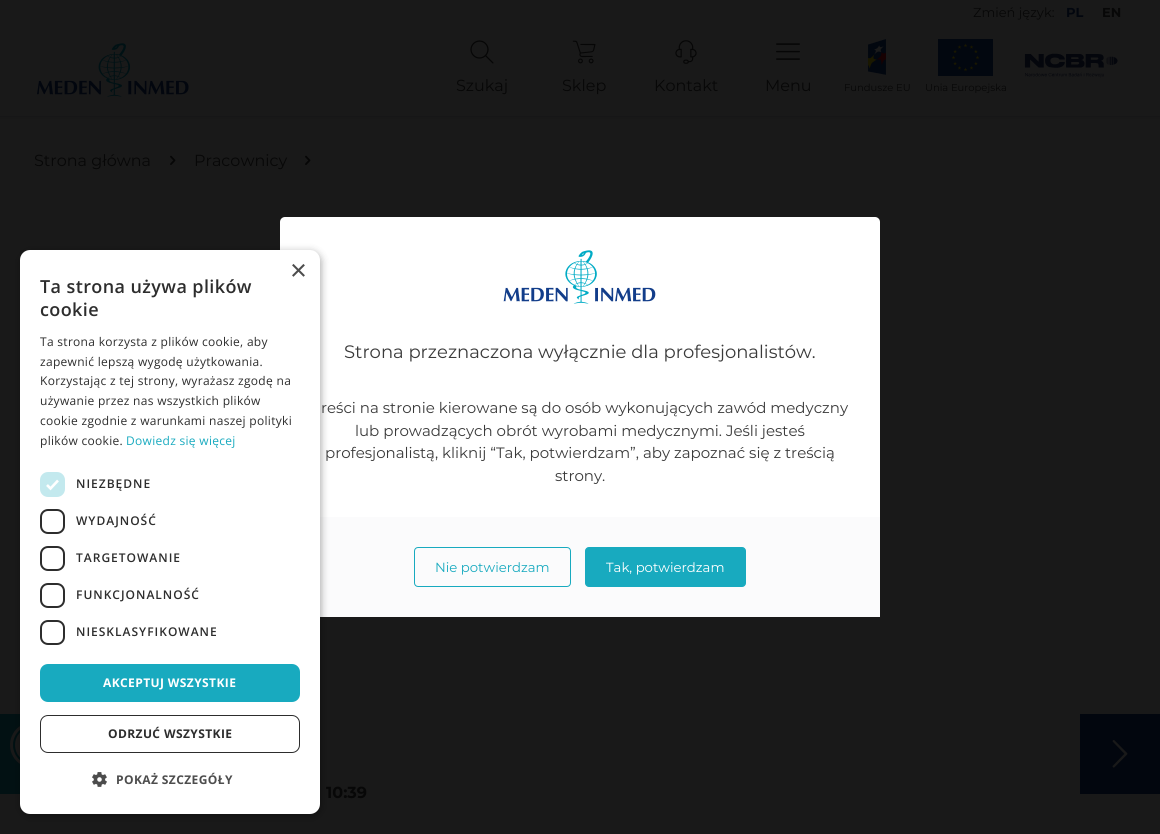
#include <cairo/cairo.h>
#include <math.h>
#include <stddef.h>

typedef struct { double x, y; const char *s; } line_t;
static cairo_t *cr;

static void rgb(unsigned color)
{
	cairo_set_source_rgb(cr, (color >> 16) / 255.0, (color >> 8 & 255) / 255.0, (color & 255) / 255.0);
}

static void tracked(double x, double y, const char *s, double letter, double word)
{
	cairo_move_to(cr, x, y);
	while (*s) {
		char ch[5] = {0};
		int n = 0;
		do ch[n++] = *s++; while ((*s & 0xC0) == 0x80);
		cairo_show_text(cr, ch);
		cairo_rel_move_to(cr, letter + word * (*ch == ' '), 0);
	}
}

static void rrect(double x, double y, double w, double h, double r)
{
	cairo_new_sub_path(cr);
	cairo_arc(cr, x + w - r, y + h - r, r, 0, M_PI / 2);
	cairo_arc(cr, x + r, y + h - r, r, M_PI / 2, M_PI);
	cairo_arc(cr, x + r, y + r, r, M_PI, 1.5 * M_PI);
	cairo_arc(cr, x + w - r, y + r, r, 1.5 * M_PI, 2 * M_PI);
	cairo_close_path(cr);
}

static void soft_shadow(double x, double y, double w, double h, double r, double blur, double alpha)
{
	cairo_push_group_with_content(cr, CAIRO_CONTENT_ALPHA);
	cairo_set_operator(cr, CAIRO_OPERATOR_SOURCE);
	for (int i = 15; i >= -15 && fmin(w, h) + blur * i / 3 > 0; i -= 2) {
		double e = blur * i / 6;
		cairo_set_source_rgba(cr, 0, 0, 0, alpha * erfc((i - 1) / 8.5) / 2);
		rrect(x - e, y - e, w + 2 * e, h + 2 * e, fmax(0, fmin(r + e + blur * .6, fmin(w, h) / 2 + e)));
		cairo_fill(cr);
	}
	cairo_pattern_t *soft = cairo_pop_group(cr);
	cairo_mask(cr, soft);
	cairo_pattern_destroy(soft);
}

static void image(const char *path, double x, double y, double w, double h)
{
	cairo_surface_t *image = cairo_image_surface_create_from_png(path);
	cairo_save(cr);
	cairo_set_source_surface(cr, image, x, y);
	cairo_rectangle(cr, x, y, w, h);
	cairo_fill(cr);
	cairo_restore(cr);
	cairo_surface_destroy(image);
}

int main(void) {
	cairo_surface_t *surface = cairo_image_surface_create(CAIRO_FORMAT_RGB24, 1160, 834);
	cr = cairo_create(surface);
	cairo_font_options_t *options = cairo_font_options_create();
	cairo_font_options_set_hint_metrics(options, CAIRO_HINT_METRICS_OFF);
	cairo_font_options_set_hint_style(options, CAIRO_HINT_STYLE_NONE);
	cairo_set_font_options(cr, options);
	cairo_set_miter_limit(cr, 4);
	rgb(0x191919);
	cairo_paint(cr);
	rgb(0x161617);
	cairo_rectangle(cr, 0, 116, 1160, 1);
	cairo_fill(cr);
	image("img/1.png", 37, 43, 152, 54);
	image("img/2.png", 470, 40, 24, 24);
	image("img/3.png", 572, 40, 24, 24);
	image("img/4.png", 675, 40, 22, 24);
	image("img/5.png", 776, 43, 24, 17);
	image("img/6.png", 1024, 53, 94, 25);
	image("img/7.png", 868, 39, 18, 36);
	image("img/8.png", 938, 39, 55, 37);
	image("img/9.png", 0, 117, 1160, 2);
	image("img/10.png", 170, 155, 6, 10);
	image("img/10.png", 305, 155, 6, 10);
	rgb(0xffffff);
	rrect(280, 217, 600, 400, 5);
	cairo_fill(cr);
	rgb(0xfbfbfc);
	cairo_rectangle(cr, 320, 517, 560, 100);
	cairo_fill(cr);
	rgb(0x021113);
	cairo_rectangle(cr, 0, 714, 20, 80);
	cairo_fill(cr);
	rgb(0x191919);
	cairo_arc(cr, 33, 745, 23, 0, 2 * M_PI);
	cairo_fill(cr);
	cairo_arc(cr, 33, 745, 19, 0, 2 * M_PI);
	rgb(0x001012);
	cairo_stroke(cr);
	rgb(0x000000);
	soft_shadow(21, 252, 300, 564, 10, 4, 0.35);
	rgb(0xffffff);
	rrect(20, 250, 300, 564, 10);
	cairo_fill(cr);
	rgb(0xc3e9ee);
	rrect(40, 472, 25, 25, 8);
	cairo_fill(cr);
	cairo_new_path(cr);
	cairo_move_to(cr, 47, 485);
	cairo_line_to(cr, 50.5, 488.5);
	cairo_line_to(cr, 58, 480.5);
	rgb(0xffffff);
	cairo_set_line_width(cr, 2.6);
	cairo_stroke(cr);
	rrect(41, 510, 23, 23, 7);
	rgb(0x2d2d2d);
	cairo_set_line_width(cr, 2);
	cairo_stroke(cr);
	rrect(41, 547, 23, 23, 7);
	cairo_stroke(cr);
	rrect(41, 584, 23, 23, 7);
	cairo_stroke(cr);
	rrect(41, 621, 23, 23, 7);
	cairo_stroke(cr);
	rgb(0x18aabf);
	rrect(40, 664, 260, 38, 8);
	cairo_fill(cr);
	rrect(40.5, 715.5, 259, 37, 7.5);
	rgb(0x2d2d2d);
	cairo_set_line_width(cr, 1);
	cairo_stroke(cr);
	image("img/11.png", 92, 772, 15, 15);
	image("img/12.png", 503, 250, 153, 54);
	rrect(414.5, 547.5, 156, 39, 3.5);
	rgb(0x18aabf);
	cairo_stroke(cr);
	rrect(585.5, 547.5, 160, 39, 3.5);
	cairo_fill_preserve(cr);
	cairo_stroke(cr);
	rgb(0x02060e);
	cairo_rectangle(cr, 1080, 714, 80, 80);
	cairo_fill(cr);
	image("img/13.png", 1112, 740, 16, 28);
	cairo_select_font_face(cr, "Montserrat", CAIRO_FONT_SLANT_NORMAL, CAIRO_FONT_WEIGHT_NORMAL);
	cairo_set_font_size(cr, 13);
	rgb(0x070707);
	cairo_move_to(cr, 973, 17);
	cairo_show_text(cr, "Zmień język:");
	cairo_select_font_face(cr, "Montserrat", CAIRO_FONT_SLANT_NORMAL, CAIRO_FONT_WEIGHT_BOLD);
	rgb(0x02060e);
	cairo_move_to(cr, 1066, 17);
	cairo_show_text(cr, "PL");
	rgb(0x070707);
	cairo_move_to(cr, 1102, 17);
	cairo_show_text(cr, "EN");
	cairo_select_font_face(cr, "Montserrat", CAIRO_FONT_SLANT_NORMAL, CAIRO_FONT_WEIGHT_NORMAL);
	cairo_set_font_size(cr, 16);
	{
		static const line_t items[] = {
			{456, 91, "Szukaj"},
			{562, 91, "Sklep"},
			{654, 91, "Kontakt"},
			{765, 91, "Menu"},
		};
		for (size_t i = 0; i < sizeof items / sizeof *items; i++) {
			cairo_move_to(cr, items[i].x, items[i].y);
			cairo_show_text(cr, items[i].s);
		}
	}
	cairo_set_font_size(cr, 10);
	cairo_move_to(cr, 844, 91);
	cairo_show_text(cr, "Fundusze EU");
	cairo_move_to(cr, 925, 91);
	cairo_show_text(cr, "Unia Europejska");
	cairo_set_font_size(cr, 16);
	cairo_move_to(cr, 34, 166);
	cairo_show_text(cr, "Strona główna");
	cairo_move_to(cr, 194, 166);
	cairo_show_text(cr, "Pracownicy");
	cairo_select_font_face(cr, "Montserrat", CAIRO_FONT_SLANT_NORMAL, CAIRO_FONT_WEIGHT_BOLD);
	cairo_move_to(cr, 326, 798);
	cairo_show_text(cr, "10:39");
	cairo_select_font_face(cr, "Liberation Sans", CAIRO_FONT_SLANT_NORMAL, CAIRO_FONT_WEIGHT_NORMAL);
	cairo_set_font_size(cr, 29);
	rgb(0x4d4d4d);
	cairo_move_to(cr, 290, 280);
	cairo_show_text(cr, "×");
	cairo_select_font_face(cr, "Open Sans SemiBold", CAIRO_FONT_SLANT_NORMAL, CAIRO_FONT_WEIGHT_NORMAL);
	cairo_set_font_size(cr, 18);
	rgb(0x2d2d2d);
	tracked(40, 293, "Ta strona używa plików", 0.4, 0);
	tracked(40, 316, "cookie", 0.4, 0);
	cairo_select_font_face(cr, "Open Sans", CAIRO_FONT_SLANT_NORMAL, CAIRO_FONT_WEIGHT_NORMAL);
	cairo_set_font_size(cr, 12);
	{
		static const line_t items[] = {
			{40, 346, "Ta strona korzysta z plików cookie, aby"},
			{40, 366, "zapewnić lepszą wygodę użytkowania."},
			{40, 385, "Korzystając z tej strony, wyrażasz zgodę na"},
			{40, 405, "używanie przez nas wszystkich plików"},
			{40, 425, "cookie zgodnie z warunkami naszej polityki"},
			{40, 445, "plików cookie."},
		};
		for (size_t i = 0; i < sizeof items / sizeof *items; i++) {
			tracked(items[i].x, items[i].y, items[i].s, 0.3, 0);
		}
	}
	rgb(0x18aabf);
	tracked(126, 445, "Dowiedz się więcej", 0.3, 0);
	cairo_select_font_face(cr, "Open Sans SemiBold", CAIRO_FONT_SLANT_NORMAL, CAIRO_FONT_WEIGHT_NORMAL);
	rgb(0x2d2d2d);
	{
		static const line_t items[] = {
			{76, 488, "NIEZBĘDNE"},
			{76, 525, "WYDAJNOŚĆ"},
			{76, 562, "TARGETOWANIE"},
			{76, 599, "FUNKCJONALNOŚĆ"},
			{76, 636, "NIESKLASYFIKOWANE"},
		};
		for (size_t i = 0; i < sizeof items / sizeof *items; i++) {
			tracked(items[i].x, items[i].y, items[i].s, 1, 0);
		}
	}
	cairo_select_font_face(cr, "Open Sans", CAIRO_FONT_SLANT_NORMAL, CAIRO_FONT_WEIGHT_BOLD);
	rgb(0xffffff);
	tracked(103, 687, "AKCEPTUJ WSZYSTKIE", 0.4, 0);
	rgb(0x2d2d2d);
	tracked(108, 738, "ODRZUĆ WSZYSTKIE", 0.4, 0);
	rgb(0x4d4d4d);
	tracked(116, 784, "POKAŻ SZCZEGÓŁY", 0.4, 0);
	cairo_select_font_face(cr, "Montserrat", CAIRO_FONT_SLANT_NORMAL, CAIRO_FONT_WEIGHT_NORMAL);
	cairo_set_font_size(cr, 18);
	rgb(0x3a3a3a);
	cairo_move_to(cr, 344, 358);
	cairo_show_text(cr, "Strona przeznaczona wyłącznie dla profesjonalistów.");
	cairo_set_font_size(cr, 15);
	{
		static const line_t items[] = {
			{321, 413, "reści na stronie kierowane są do osób wykonujących zawód medyczny"},
			{355, 436, "lub prowadzących obrót wyrobami medycznymi. Jeśli jesteś"},
			{325, 458, "profesjonalistą, kliknij “Tak, potwierdzam”, aby zapoznać się z treścią"},
			{555, 481, "strony."},
		};
		for (size_t i = 0; i < sizeof items / sizeof *items; i++) {
			cairo_move_to(cr, items[i].x, items[i].y);
			cairo_show_text(cr, items[i].s);
		}
	}
	cairo_set_font_size(cr, 13.25);
	rgb(0x18aabf);
	cairo_move_to(cr, 435, 572);
	cairo_show_text(cr, "Nie potwierdzam");
	rgb(0xffffff);
	cairo_move_to(cr, 606, 572);
	cairo_show_text(cr, "Tak, potwierdzam");
	cairo_surface_write_to_png(surface, "page.png");
	cairo_font_options_destroy(options);
	cairo_destroy(cr);
	cairo_surface_destroy(surface);
	return 0;
}
